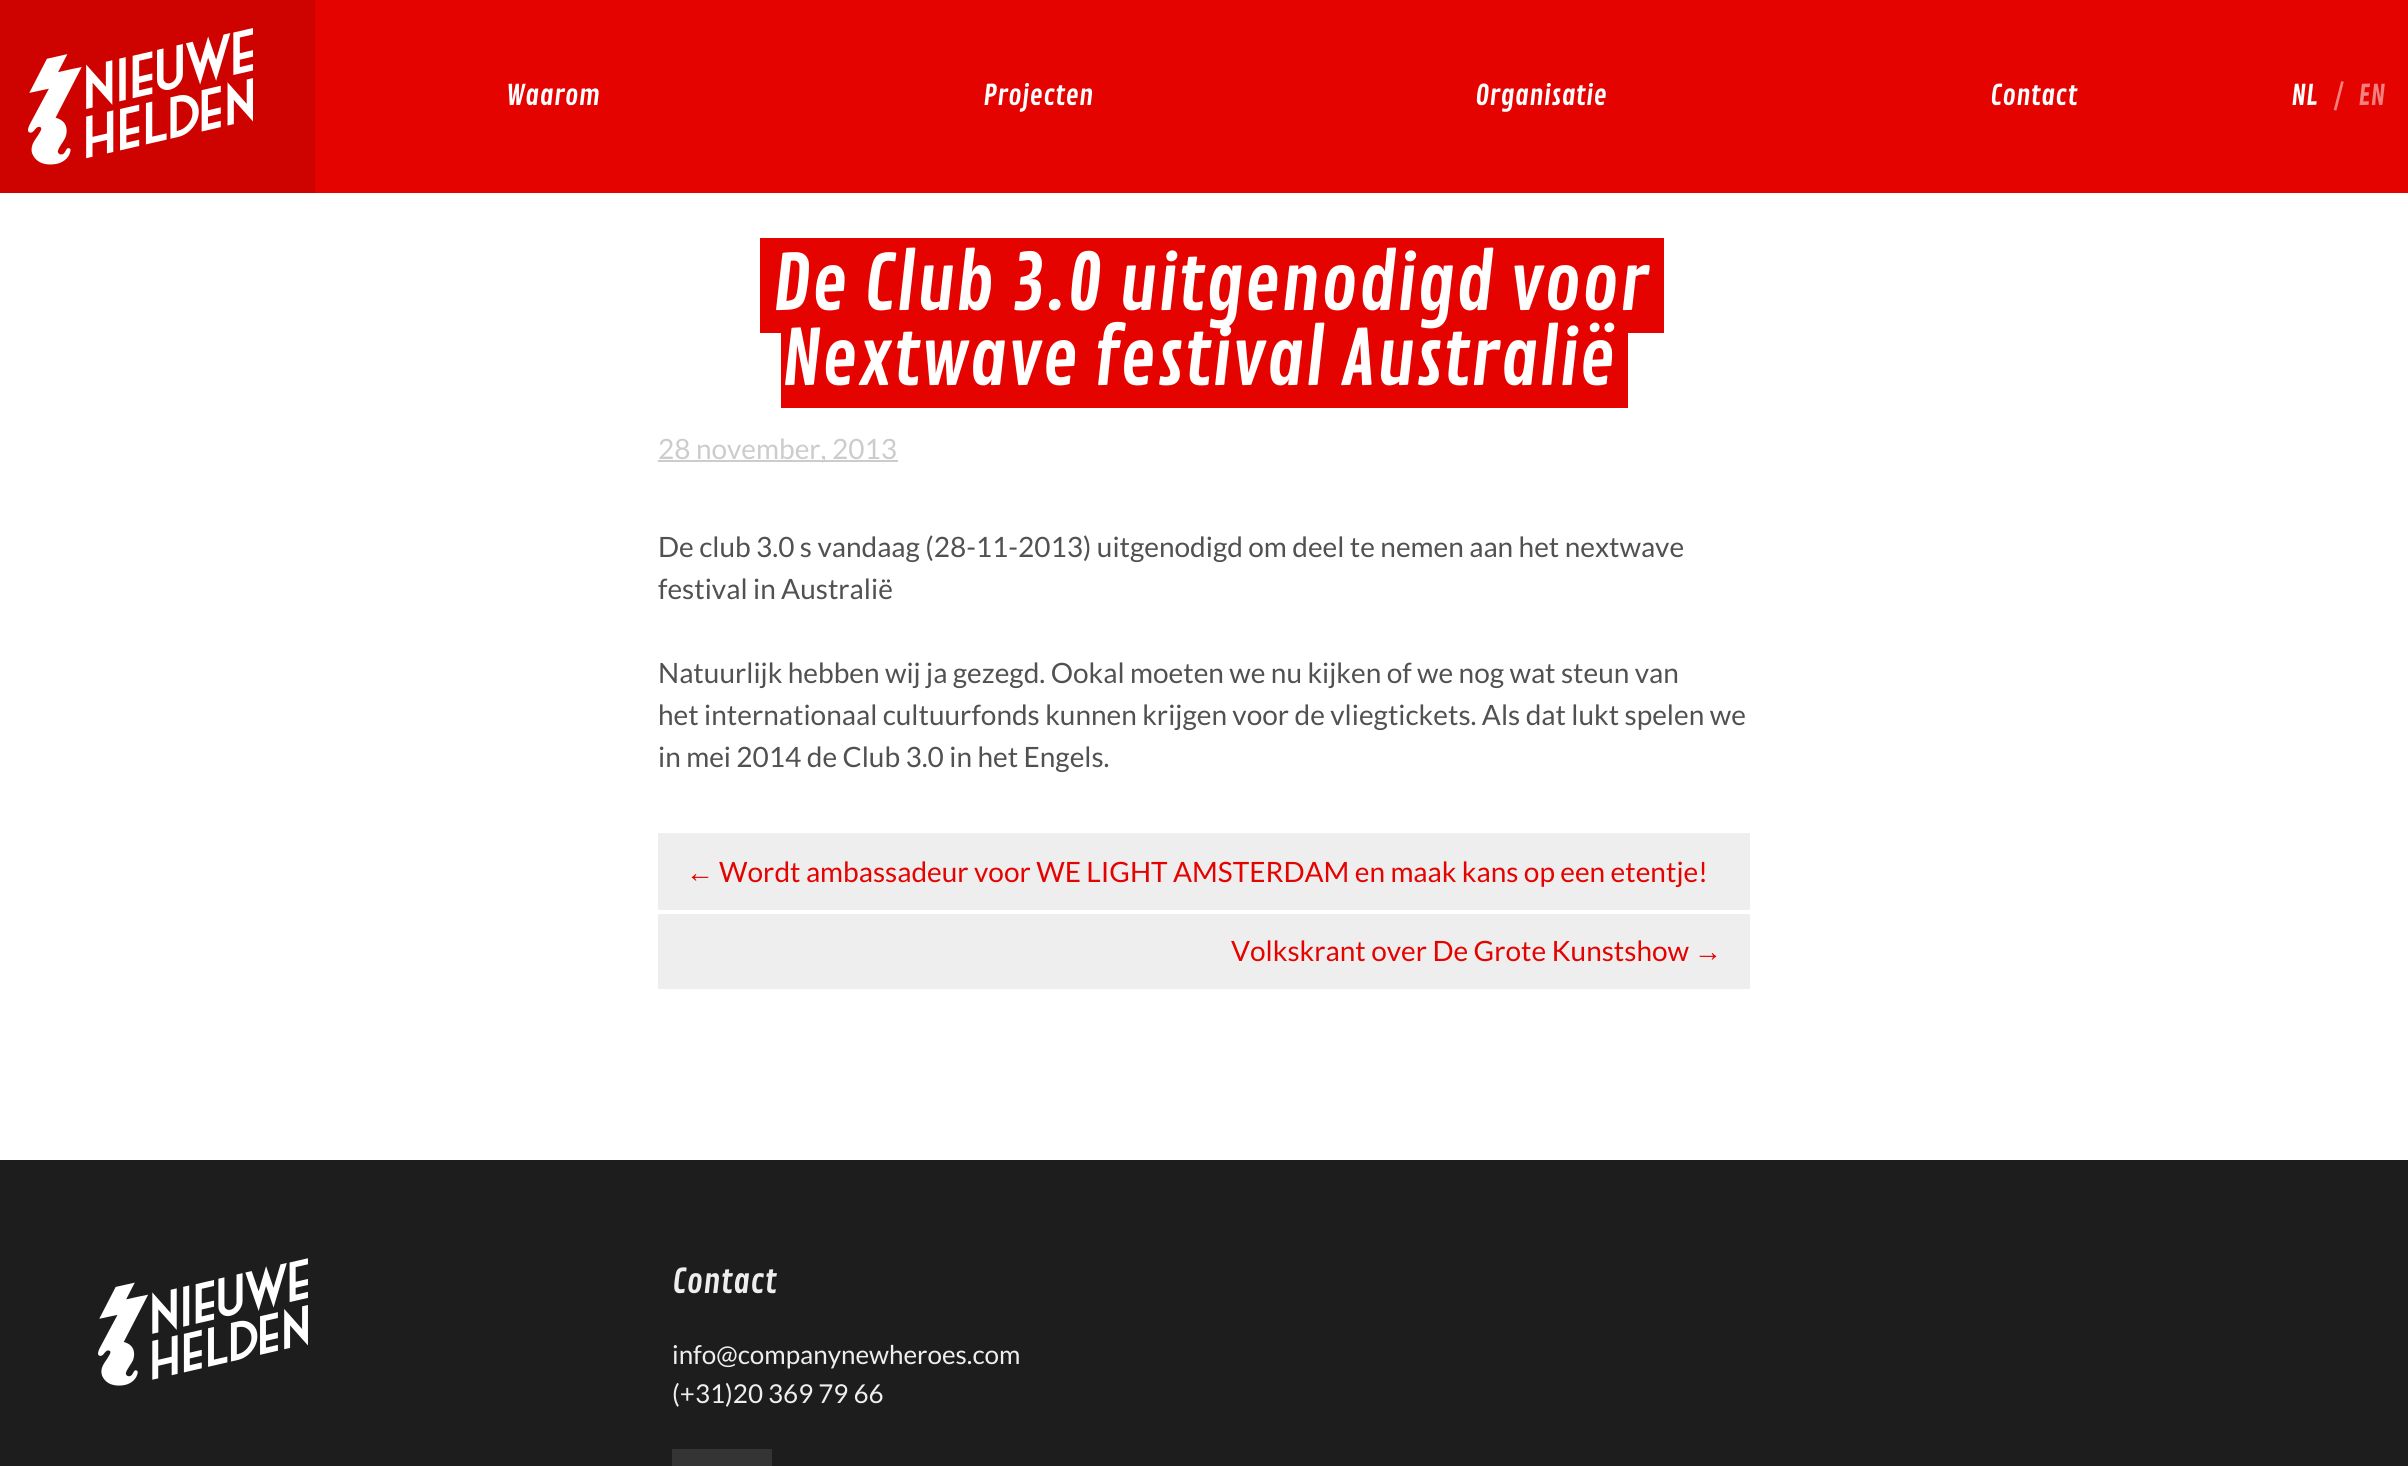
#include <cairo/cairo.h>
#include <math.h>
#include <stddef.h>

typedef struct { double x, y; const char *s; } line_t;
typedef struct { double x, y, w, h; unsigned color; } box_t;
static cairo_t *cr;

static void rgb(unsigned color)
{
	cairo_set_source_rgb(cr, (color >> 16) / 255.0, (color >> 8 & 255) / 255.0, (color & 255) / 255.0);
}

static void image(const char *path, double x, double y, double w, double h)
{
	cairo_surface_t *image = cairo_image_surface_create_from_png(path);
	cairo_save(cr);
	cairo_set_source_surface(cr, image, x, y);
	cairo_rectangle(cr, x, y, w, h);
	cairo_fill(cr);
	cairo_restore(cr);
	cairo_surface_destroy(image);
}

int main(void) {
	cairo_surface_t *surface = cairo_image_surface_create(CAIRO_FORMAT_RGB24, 2408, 1466);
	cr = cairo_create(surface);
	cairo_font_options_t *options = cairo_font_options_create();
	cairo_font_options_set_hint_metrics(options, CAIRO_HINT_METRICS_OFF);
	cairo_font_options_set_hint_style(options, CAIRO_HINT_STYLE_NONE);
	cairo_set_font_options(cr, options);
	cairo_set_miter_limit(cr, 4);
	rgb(0xffffff);
	cairo_paint(cr);
	rgb(0xe50300);
	cairo_rectangle(cr, 315, 0, 2093, 193);
	cairo_fill(cr);
	rgb(0xce0300);
	cairo_rectangle(cr, 0, 0, 315, 193);
	cairo_fill(cr);
	image("img/1.png", 28, 28, 225, 137);
	{
		static const box_t items[] = {
			{760, 238, 904, 95, 0xe50300},
			{781, 333, 847, 75, 0xe50300},
			{658, 460, 240, 2, 0xcccccc},
			{658, 833, 1092, 77, 0xeeeeee},
			{658, 914, 1092, 75, 0xeeeeee},
			{0, 1160, 2408, 306, 0x1d1d1d},
		};
		for (size_t i = 0; i < sizeof items / sizeof *items; i++) {
			rgb(items[i].color);
			cairo_rectangle(cr, items[i].x, items[i].y, items[i].w, items[i].h);
			cairo_fill(cr);
		}
	}
	image("img/2.png", 98, 1258, 210, 128);
	rgb(0x343434);
	cairo_rectangle(cr, 672, 1449, 100, 17);
	cairo_fill(cr);
	cairo_select_font_face(cr, "Contrail One", CAIRO_FONT_SLANT_NORMAL, CAIRO_FONT_WEIGHT_NORMAL);
	cairo_set_font_size(cr, 28);
	rgb(0xffffff);
	{
		static const line_t items[] = {
			{506, 105, "Waarom"},
			{983, 105, "Projecten"},
			{1475, 105, "Organisatie"},
			{1990, 105, "Contact"},
			{2291, 105, "NL"},
		};
		for (size_t i = 0; i < sizeof items / sizeof *items; i++) {
			cairo_move_to(cr, items[i].x, items[i].y);
			cairo_show_text(cr, items[i].s);
		}
	}
	rgb(0xf28180);
	cairo_move_to(cr, 2335, 105);
	cairo_show_text(cr, "/");
	cairo_move_to(cr, 2358, 105);
	cairo_show_text(cr, "EN");
	cairo_set_font_size(cr, 75.6);
	rgb(0xffffff);
	cairo_move_to(cr, 772, 310);
	cairo_show_text(cr, "De Club 3.0 uitgenodigd voor");
	cairo_move_to(cr, 781, 385);
	cairo_show_text(cr, "Nextwave festival Australië");
	cairo_select_font_face(cr, "Lato", CAIRO_FONT_SLANT_NORMAL, CAIRO_FONT_WEIGHT_NORMAL);
	cairo_set_font_size(cr, 28);
	rgb(0xcccccc);
	cairo_move_to(cr, 658, 459);
	cairo_show_text(cr, "28 november, 2013");
	rgb(0x515151);
	{
		static const line_t items[] = {
			{658, 557, "De club 3.0 s vandaag (28-11-2013) uitgenodigd om deel te nemen aan het nextwave"},
			{658, 599, "festival in Australië"},
			{658, 683, "Natuurlijk hebben wij ja gezegd. Ookal moeten we nu kijken of we nog wat steun van"},
			{658, 725, "het internationaal cultuurfonds kunnen krijgen voor de vliegtickets. Als dat lukt spelen we"},
			{658, 767, "in mei 2014 de Club 3.0 in het Engels."},
		};
		for (size_t i = 0; i < sizeof items / sizeof *items; i++) {
			cairo_move_to(cr, items[i].x, items[i].y);
			cairo_show_text(cr, items[i].s);
		}
	}
	cairo_select_font_face(cr, "Liberation Sans", CAIRO_FONT_SLANT_NORMAL, CAIRO_FONT_WEIGHT_NORMAL);
	rgb(0xe50300);
	cairo_move_to(cr, 686, 882);
	cairo_show_text(cr, "←");
	cairo_select_font_face(cr, "Lato", CAIRO_FONT_SLANT_NORMAL, CAIRO_FONT_WEIGHT_NORMAL);
	cairo_move_to(cr, 719, 882);
	cairo_show_text(cr, "Wordt ambassadeur voor WE LIGHT AMSTERDAM en maak kans op een etentje!");
	cairo_move_to(cr, 1231, 961);
	cairo_show_text(cr, "Volkskrant over De Grote Kunstshow");
	cairo_select_font_face(cr, "Liberation Sans", CAIRO_FONT_SLANT_NORMAL, CAIRO_FONT_WEIGHT_NORMAL);
	cairo_move_to(cr, 1694, 961);
	cairo_show_text(cr, "→");
	cairo_select_font_face(cr, "Contrail One", CAIRO_FONT_SLANT_NORMAL, CAIRO_FONT_WEIGHT_NORMAL);
	cairo_set_font_size(cr, 33.5);
	rgb(0xeeeeee);
	cairo_move_to(cr, 672, 1293);
	cairo_show_text(cr, "Contact");
	cairo_select_font_face(cr, "Lato", CAIRO_FONT_SLANT_NORMAL, CAIRO_FONT_WEIGHT_NORMAL);
	cairo_set_font_size(cr, 26);
	cairo_move_to(cr, 672, 1364);
	cairo_show_text(cr, "info@companynewheroes.com");
	cairo_move_to(cr, 672, 1403);
	cairo_show_text(cr, "(+31)20 369 79 66");
	cairo_surface_write_to_png(surface, "page.png");
	cairo_font_options_destroy(options);
	cairo_destroy(cr);
	cairo_surface_destroy(surface);
	return 0;
}
